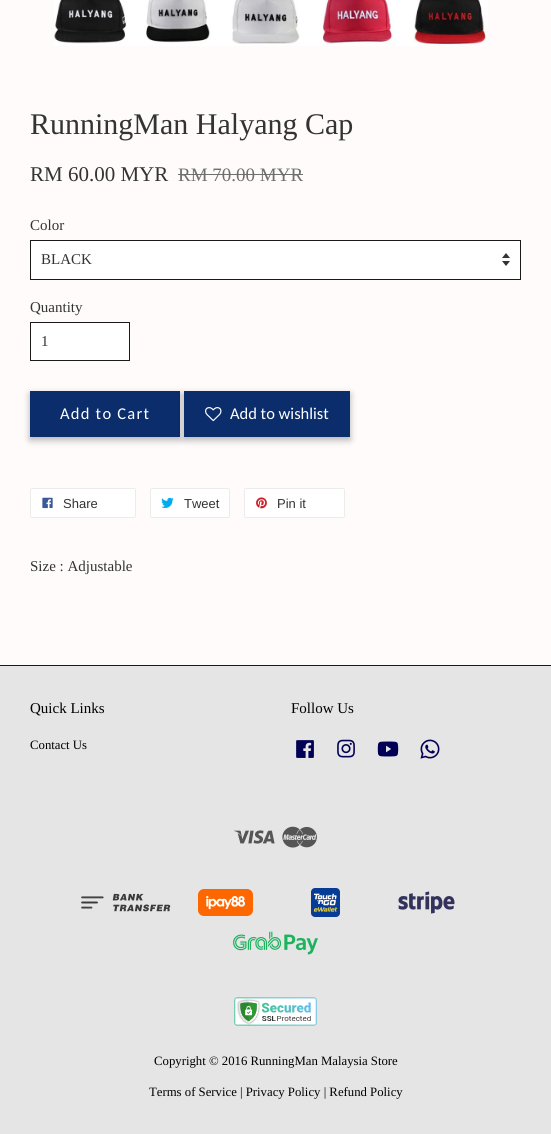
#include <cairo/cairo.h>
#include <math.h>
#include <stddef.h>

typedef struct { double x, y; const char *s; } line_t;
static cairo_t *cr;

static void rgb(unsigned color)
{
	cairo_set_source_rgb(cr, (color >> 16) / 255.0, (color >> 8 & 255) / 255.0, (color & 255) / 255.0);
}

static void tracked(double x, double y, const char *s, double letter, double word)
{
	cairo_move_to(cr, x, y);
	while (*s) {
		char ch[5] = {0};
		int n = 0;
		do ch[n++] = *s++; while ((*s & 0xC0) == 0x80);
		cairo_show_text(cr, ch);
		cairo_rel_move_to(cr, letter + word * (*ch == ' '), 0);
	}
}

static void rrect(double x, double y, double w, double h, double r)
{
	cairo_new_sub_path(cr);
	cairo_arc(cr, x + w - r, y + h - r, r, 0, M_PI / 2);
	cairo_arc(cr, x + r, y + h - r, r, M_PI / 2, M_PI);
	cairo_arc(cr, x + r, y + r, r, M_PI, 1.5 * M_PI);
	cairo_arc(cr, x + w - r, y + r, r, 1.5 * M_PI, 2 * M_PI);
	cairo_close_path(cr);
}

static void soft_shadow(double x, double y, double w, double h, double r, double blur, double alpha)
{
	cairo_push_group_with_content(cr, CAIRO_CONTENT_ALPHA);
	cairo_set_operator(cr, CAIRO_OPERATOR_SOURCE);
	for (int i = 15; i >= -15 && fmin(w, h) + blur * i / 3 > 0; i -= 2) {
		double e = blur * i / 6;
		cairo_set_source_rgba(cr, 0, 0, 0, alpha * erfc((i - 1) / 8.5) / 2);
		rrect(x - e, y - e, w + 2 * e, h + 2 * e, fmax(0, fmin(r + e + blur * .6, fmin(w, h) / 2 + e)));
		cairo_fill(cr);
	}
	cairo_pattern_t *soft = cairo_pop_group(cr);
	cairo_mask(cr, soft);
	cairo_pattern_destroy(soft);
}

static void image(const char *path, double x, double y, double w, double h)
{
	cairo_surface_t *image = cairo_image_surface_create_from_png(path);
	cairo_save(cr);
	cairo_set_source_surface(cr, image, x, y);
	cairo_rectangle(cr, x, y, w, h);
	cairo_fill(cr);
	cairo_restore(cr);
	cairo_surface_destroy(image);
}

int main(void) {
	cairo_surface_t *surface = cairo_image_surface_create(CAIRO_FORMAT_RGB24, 551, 1134);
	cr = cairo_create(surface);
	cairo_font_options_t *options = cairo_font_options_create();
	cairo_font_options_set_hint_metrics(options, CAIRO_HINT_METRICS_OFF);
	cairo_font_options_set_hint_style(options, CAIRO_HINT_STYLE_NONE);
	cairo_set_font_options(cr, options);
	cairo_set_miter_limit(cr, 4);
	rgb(0xfffbfb);
	cairo_paint(cr);
	image("img/1.png", 54, 0, 434, 46);
	rgb(0x706f6f);
	cairo_rectangle(cr, 178, 174, 125, 1);
	cairo_fill(cr);
	rgb(0xffffff);
	cairo_rectangle(cr, 31, 241, 489, 38);
	cairo_fill(cr);
	image("img/2.png", 502, 253, 8, 13);
	cairo_rectangle(cr, 30.5, 240.5, 490, 39);
	rgb(0x1a1a1a);
	cairo_set_line_width(cr, 1);
	cairo_stroke(cr);
	rgb(0xffffff);
	cairo_rectangle(cr, 30.5, 322.5, 99, 38);
	cairo_fill_preserve(cr);
	rgb(0x1a1a1a);
	cairo_stroke(cr);
	rgb(0x000000);
	soft_shadow(30, 394, 150, 46, 0, 3.5, 0.3);
	rgb(0x0b2d6c);
	cairo_rectangle(cr, 30, 391, 150, 46);
	cairo_fill(cr);
	rgb(0x000000);
	soft_shadow(184, 394, 166, 46, 0, 3.5, 0.3);
	rgb(0x0b2d6c);
	cairo_rectangle(cr, 184, 391, 166, 46);
	cairo_fill(cr);
	image("img/3.png", 205, 407, 17, 15);
	rgb(0xffffff);
	rrect(30.5, 488.5, 105, 29, 1.5);
	cairo_fill_preserve(cr);
	rgb(0xececec);
	cairo_stroke(cr);
	image("img/4.png", 42, 497, 11, 12);
	rgb(0xffffff);
	rrect(150.5, 488.5, 79, 29, 1.5);
	cairo_fill_preserve(cr);
	rgb(0xececec);
	cairo_stroke(cr);
	image("img/5.png", 161, 497, 13, 11);
	rgb(0xffffff);
	rrect(244.5, 488.5, 100, 29, 1.5);
	cairo_fill_preserve(cr);
	rgb(0xececec);
	cairo_stroke(cr);
	image("img/6.png", 256, 497, 11, 12);
	rgb(0xe5e5e5);
	cairo_rectangle(cr, 0, 666, 551, 468);
	cairo_fill(cr);
	rgb(0x1a1a1a);
	cairo_rectangle(cr, 0, 665, 551, 1);
	cairo_fill(cr);
	image("img/7.png", 296, 740, 18, 18);
	image("img/8.png", 337, 739, 18, 19);
	image("img/9.png", 377, 741, 22, 16);
	image("img/10.png", 420, 739, 20, 20);
	image("img/11.png", 234, 830, 41, 14);
	image("img/12.png", 282, 826, 35, 22);
	image("img/13.png", 81, 893, 90, 19);
	image("img/14.png", 198, 889, 55, 27);
	image("img/15.png", 311, 888, 29, 29);
	image("img/16.png", 398, 891, 57, 23);
	image("img/17.png", 233, 931, 85, 24);
	image("img/18.png", 234, 997, 83, 29);
	cairo_select_font_face(cr, "Liberation Serif", CAIRO_FONT_SLANT_NORMAL, CAIRO_FONT_WEIGHT_NORMAL);
	cairo_set_font_size(cr, 30);
	rgb(0x333333);
	cairo_move_to(cr, 30, 134);
	cairo_show_text(cr, "RunningMan Halyang Cap");
	cairo_set_font_size(cr, 21);
	cairo_move_to(cr, 30, 181);
	cairo_show_text(cr, "RM 60.00 MYR");
	cairo_set_font_size(cr, 19);
	rgb(0x706f6f);
	cairo_move_to(cr, 178, 181);
	cairo_show_text(cr, "RM 70.00 MYR");
	cairo_set_font_size(cr, 15);
	rgb(0x333333);
	{
		static const line_t items[] = {
			{30, 230, "Color"},
			{41, 264, "BLACK"},
			{30, 312, "Quantity"},
			{41, 346, "1"},
		};
		for (size_t i = 0; i < sizeof items / sizeof *items; i++) {
			cairo_move_to(cr, items[i].x, items[i].y);
			cairo_show_text(cr, items[i].s);
		}
	}
	cairo_select_font_face(cr, "Carlito", CAIRO_FONT_SLANT_NORMAL, CAIRO_FONT_WEIGHT_NORMAL);
	cairo_set_font_size(cr, 16.5);
	rgb(0xffffff);
	tracked(60, 419, "Add to Cart", 1.25, 0);
	cairo_move_to(cr, 230, 419);
	cairo_show_text(cr, "Add to wishlist");
	cairo_select_font_face(cr, "Liberation Sans", CAIRO_FONT_SLANT_NORMAL, CAIRO_FONT_WEIGHT_NORMAL);
	cairo_set_font_size(cr, 13);
	rgb(0x333333);
	{
		static const line_t items[] = {
			{63, 508, "Share"},
			{184, 508, "Tweet"},
			{277, 508, "Pin it"},
		};
		for (size_t i = 0; i < sizeof items / sizeof *items; i++) {
			cairo_move_to(cr, items[i].x, items[i].y);
			cairo_show_text(cr, items[i].s);
		}
	}
	cairo_select_font_face(cr, "Liberation Serif", CAIRO_FONT_SLANT_NORMAL, CAIRO_FONT_WEIGHT_NORMAL);
	cairo_set_font_size(cr, 15);
	cairo_move_to(cr, 30, 571);
	cairo_show_text(cr, "Size : Adjustable");
	rgb(0x000000);
	cairo_move_to(cr, 30, 713);
	cairo_show_text(cr, "Quick Links");
	cairo_set_font_size(cr, 12.75);
	cairo_move_to(cr, 30, 749);
	cairo_show_text(cr, "Contact Us");
	cairo_set_font_size(cr, 15);
	cairo_move_to(cr, 291, 713);
	cairo_show_text(cr, "Follow Us");
	cairo_set_font_size(cr, 12.75);
	cairo_move_to(cr, 154, 1065);
	cairo_show_text(cr, "Copyright © 2016 RunningMan Malaysia Store");
	cairo_move_to(cr, 149, 1096);
	cairo_show_text(cr, "Terms of Service | Privacy Policy | Refund Policy");
	cairo_surface_write_to_png(surface, "page.png");
	cairo_font_options_destroy(options);
	cairo_destroy(cr);
	cairo_surface_destroy(surface);
	return 0;
}
